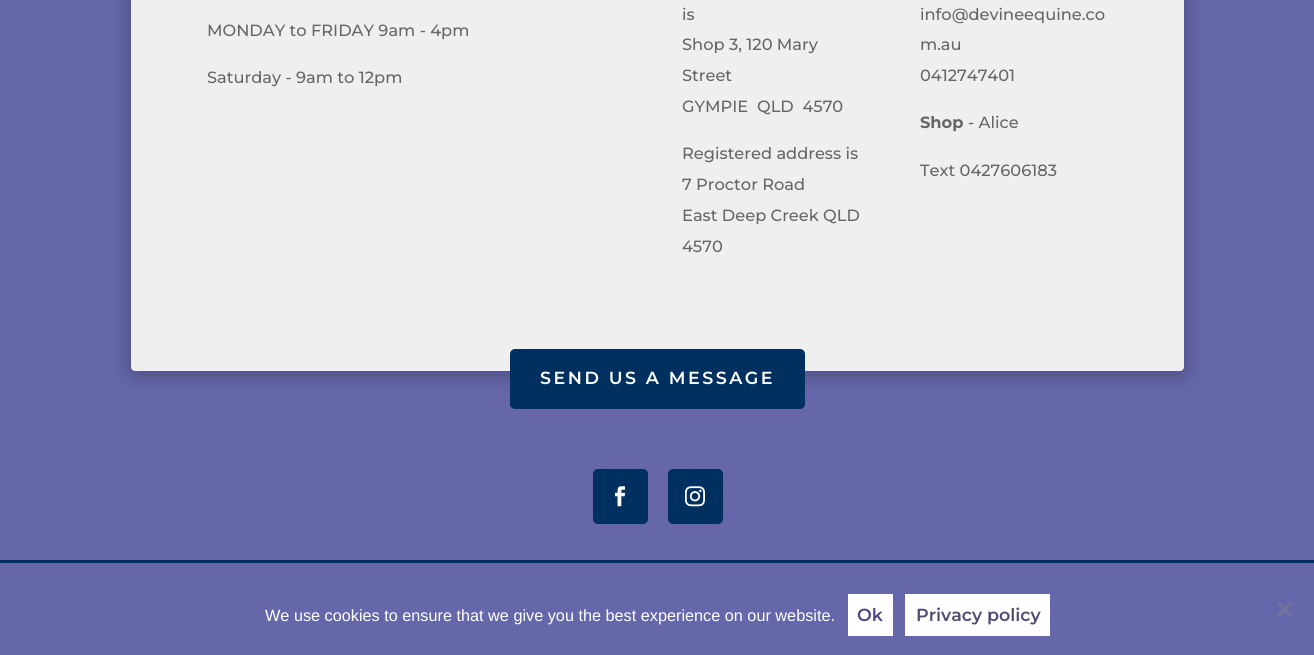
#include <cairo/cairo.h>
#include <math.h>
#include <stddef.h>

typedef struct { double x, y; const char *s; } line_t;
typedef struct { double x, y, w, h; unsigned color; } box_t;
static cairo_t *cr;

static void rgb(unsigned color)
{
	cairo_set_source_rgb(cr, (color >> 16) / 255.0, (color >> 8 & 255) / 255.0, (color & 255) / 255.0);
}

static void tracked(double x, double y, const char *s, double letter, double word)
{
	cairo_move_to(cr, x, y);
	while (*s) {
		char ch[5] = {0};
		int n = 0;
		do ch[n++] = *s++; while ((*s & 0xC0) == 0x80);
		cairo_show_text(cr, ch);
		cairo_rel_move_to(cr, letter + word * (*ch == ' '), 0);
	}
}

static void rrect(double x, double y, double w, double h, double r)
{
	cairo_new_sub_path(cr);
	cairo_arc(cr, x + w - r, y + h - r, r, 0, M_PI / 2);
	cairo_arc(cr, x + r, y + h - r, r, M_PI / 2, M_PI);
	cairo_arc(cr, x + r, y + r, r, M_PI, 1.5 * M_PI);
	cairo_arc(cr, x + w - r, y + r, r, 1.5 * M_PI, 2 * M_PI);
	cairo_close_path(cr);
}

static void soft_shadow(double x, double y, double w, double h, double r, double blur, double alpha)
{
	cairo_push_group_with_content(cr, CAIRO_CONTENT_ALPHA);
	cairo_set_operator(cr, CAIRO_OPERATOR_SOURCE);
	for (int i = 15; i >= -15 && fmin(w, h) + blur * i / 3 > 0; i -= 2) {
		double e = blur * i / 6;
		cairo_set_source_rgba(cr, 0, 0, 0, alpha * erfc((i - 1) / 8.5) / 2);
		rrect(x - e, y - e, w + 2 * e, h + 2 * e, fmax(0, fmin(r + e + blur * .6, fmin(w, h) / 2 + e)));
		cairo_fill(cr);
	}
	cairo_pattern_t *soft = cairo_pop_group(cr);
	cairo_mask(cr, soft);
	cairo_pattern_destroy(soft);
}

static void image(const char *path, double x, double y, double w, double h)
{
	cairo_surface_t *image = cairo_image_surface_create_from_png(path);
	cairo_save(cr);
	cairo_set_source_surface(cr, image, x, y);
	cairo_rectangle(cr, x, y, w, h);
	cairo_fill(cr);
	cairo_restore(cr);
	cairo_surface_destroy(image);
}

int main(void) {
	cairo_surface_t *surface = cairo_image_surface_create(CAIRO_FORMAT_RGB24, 1314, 655);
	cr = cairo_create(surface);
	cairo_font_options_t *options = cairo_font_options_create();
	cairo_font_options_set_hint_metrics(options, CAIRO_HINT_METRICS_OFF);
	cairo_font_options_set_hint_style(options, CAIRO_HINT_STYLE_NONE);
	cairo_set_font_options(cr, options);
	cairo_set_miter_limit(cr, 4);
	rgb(0x6667ab);
	cairo_paint(cr);
	rgb(0x000000);
	soft_shadow(131, -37, 1053, 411, 4, 11, 0.3);
	rgb(0xefefef);
	rrect(131, -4, 1053, 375, 4);
	cairo_fill(cr);
	rgb(0x003060);
	rrect(510, 349, 295, 60, 5);
	cairo_fill(cr);
	rrect(593, 469, 55, 55, 5);
	cairo_fill(cr);
	image("img/1.png", 615, 486, 10, 21);
	rrect(668, 469, 55, 55, 5);
	cairo_fill(cr);
	image("img/2.png", 685, 486, 20, 21);
	{
		static const box_t items[] = {
			{0, 560, 1314, 3, 0x003060},
			{848, 594, 45, 42, 0xffffff},
			{905, 594, 145, 42, 0xffffff},
		};
		for (size_t i = 0; i < sizeof items / sizeof *items; i++) {
			rgb(items[i].color);
			cairo_rectangle(cr, items[i].x, items[i].y, items[i].w, items[i].h);
			cairo_fill(cr);
		}
	}
	rgb(0x737496);
	cairo_new_path(cr);
	cairo_move_to(cr, 1290.5, 602);
	cairo_line_to(cr, 1292.5, 603.5);
	cairo_line_to(cr, 1279.5, 617);
	cairo_line_to(cr, 1277.5, 615);
	cairo_close_path(cr);
	cairo_fill(cr);
	cairo_new_path(cr);
	cairo_move_to(cr, 1277.5, 603.5);
	cairo_line_to(cr, 1279.5, 602);
	cairo_line_to(cr, 1292.5, 615);
	cairo_line_to(cr, 1290.5, 617);
	cairo_close_path(cr);
	cairo_fill(cr);
	cairo_select_font_face(cr, "Montserrat Thin", CAIRO_FONT_SLANT_NORMAL, CAIRO_FONT_WEIGHT_NORMAL);
	cairo_set_font_size(cr, 16.25);
	rgb(0x666666);
	{
		static const line_t items[] = {
			{207, 36, "MONDAY to FRIDAY 9am - 4pm"},
			{207, 83, "Saturday - 9am to 12pm"},
			{682, 20, "is"},
			{682, 50, "Shop 3, 120 Mary"},
			{682, 81, "Street"},
			{682, 112, "GYMPIE  QLD  4570"},
			{682, 159, "Registered address is"},
			{682, 190, "7 Proctor Road"},
			{682, 221, "East Deep Creek QLD"},
			{682, 252, "4570"},
			{920, 20, "info@devineequine.co"},
			{920, 50, "m.au"},
			{920, 81, "0412747401"},
		};
		for (size_t i = 0; i < sizeof items / sizeof *items; i++) {
			cairo_move_to(cr, items[i].x, items[i].y);
			cairo_show_text(cr, items[i].s);
		}
	}
	cairo_select_font_face(cr, "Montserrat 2 Thin", CAIRO_FONT_SLANT_NORMAL, CAIRO_FONT_WEIGHT_NORMAL);
	cairo_move_to(cr, 920, 128);
	cairo_show_text(cr, "Shop");
	cairo_select_font_face(cr, "Montserrat Thin", CAIRO_FONT_SLANT_NORMAL, CAIRO_FONT_WEIGHT_NORMAL);
	cairo_move_to(cr, 968, 128);
	cairo_show_text(cr, "- Alice");
	cairo_move_to(cr, 920, 176);
	cairo_show_text(cr, "Text 0427606183");
	cairo_select_font_face(cr, "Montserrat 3 Thin", CAIRO_FONT_SLANT_NORMAL, CAIRO_FONT_WEIGHT_NORMAL);
	cairo_set_font_size(cr, 17.5);
	rgb(0xffffff);
	tracked(540, 384, "SEND US A MESSAGE", 2.5, 0);
	cairo_select_font_face(cr, "Liberation Sans", CAIRO_FONT_SLANT_NORMAL, CAIRO_FONT_WEIGHT_NORMAL);
	cairo_set_font_size(cr, 16.25);
	cairo_move_to(cr, 265, 621);
	cairo_show_text(cr, "We use cookies to ensure that we give you the best experience on our website.");
	cairo_select_font_face(cr, "Montserrat 3 Thin", CAIRO_FONT_SLANT_NORMAL, CAIRO_FONT_WEIGHT_NORMAL);
	cairo_set_font_size(cr, 17.5);
	rgb(0x4d4785);
	cairo_move_to(cr, 857, 621);
	cairo_show_text(cr, "Ok");
	rgb(0x504c73);
	cairo_move_to(cr, 916, 621);
	cairo_show_text(cr, "Privacy policy");
	cairo_surface_write_to_png(surface, "page.png");
	cairo_font_options_destroy(options);
	cairo_destroy(cr);
	cairo_surface_destroy(surface);
	return 0;
}
